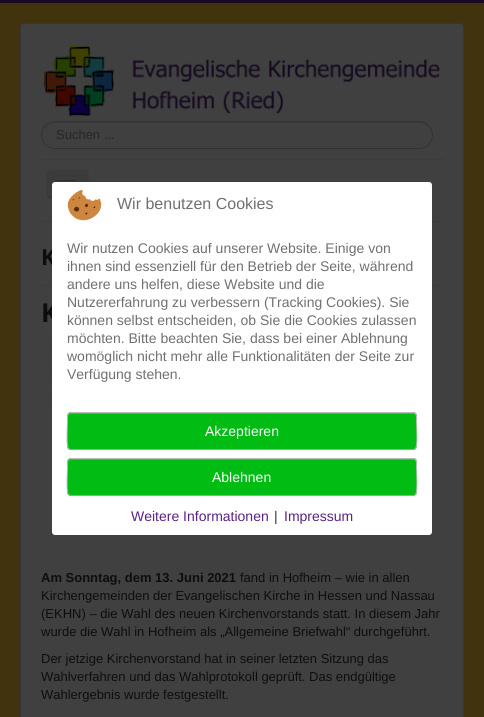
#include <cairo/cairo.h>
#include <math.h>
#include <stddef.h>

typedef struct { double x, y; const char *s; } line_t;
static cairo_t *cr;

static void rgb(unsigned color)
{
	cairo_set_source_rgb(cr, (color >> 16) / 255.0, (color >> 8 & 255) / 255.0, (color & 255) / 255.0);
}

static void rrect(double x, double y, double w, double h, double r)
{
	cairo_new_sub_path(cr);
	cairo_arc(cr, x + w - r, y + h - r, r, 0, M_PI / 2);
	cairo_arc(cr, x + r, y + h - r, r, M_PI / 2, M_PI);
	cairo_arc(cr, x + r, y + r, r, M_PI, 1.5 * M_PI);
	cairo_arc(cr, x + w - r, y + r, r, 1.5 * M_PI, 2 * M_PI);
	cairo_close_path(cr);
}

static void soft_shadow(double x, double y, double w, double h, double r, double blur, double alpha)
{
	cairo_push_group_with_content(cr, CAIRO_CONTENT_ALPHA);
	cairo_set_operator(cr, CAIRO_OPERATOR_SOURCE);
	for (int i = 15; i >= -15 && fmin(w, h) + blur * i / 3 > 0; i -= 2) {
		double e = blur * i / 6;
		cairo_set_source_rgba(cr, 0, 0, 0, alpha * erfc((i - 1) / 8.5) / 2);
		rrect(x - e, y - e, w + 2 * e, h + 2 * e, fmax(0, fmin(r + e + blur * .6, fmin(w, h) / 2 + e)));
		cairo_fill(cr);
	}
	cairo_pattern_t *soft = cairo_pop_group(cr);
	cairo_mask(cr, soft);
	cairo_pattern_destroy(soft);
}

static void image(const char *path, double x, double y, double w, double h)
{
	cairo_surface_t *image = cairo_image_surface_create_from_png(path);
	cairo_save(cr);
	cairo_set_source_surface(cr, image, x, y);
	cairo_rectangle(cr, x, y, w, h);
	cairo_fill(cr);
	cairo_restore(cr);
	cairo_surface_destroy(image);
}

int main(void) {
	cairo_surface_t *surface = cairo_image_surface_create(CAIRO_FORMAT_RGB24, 484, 717);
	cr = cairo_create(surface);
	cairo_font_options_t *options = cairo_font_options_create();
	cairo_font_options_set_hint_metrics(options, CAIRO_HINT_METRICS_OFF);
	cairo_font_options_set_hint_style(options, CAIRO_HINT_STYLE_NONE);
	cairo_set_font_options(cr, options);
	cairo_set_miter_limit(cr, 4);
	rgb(0x40330d);
	cairo_paint(cr);
	rgb(0x170921);
	cairo_rectangle(cr, 0, 0, 484, 3);
	cairo_fill(cr);
	rgb(0x404040);
	rrect(20, 23, 444, 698, 4);
	cairo_fill(cr);
	rrect(20.5, 23.5, 443, 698, 3.5);
	cairo_set_source_rgba(cr, 0, 0, 0, 0.15);
	cairo_set_line_width(cr, 1);
	cairo_stroke(cr);
	image("img/1.png", 43, 45, 397, 72);
	rgb(0x3b3b3b);
	cairo_new_path(cr);
	cairo_move_to(cr, 55, 123);
	cairo_line_to(cr, 419, 123);
	cairo_curve_to(cr, 426, 123, 432, 129, 432, 136);
	cairo_line_to(cr, 432, 135);
	cairo_curve_to(cr, 432, 128, 426, 122, 419, 122);
	cairo_line_to(cr, 55, 122);
	cairo_curve_to(cr, 48, 122, 42, 128, 42, 135);
	cairo_line_to(cr, 42, 136);
	cairo_curve_to(cr, 42, 129, 48, 123, 55, 123);
	cairo_close_path(cr);
	cairo_fill(cr);
	rrect(41.5, 121.5, 391, 27, 13.5);
	rgb(0x333333);
	cairo_stroke(cr);
	rgb(0x3b3b3b);
	cairo_rectangle(cr, 41, 159, 402, 1);
	cairo_fill(cr);
	cairo_rectangle(cr, 41, 221, 402, 1);
	cairo_fill(cr);
	rrect(46, 170, 43, 28, 4);
	cairo_fill(cr);
	cairo_new_path(cr);
	cairo_move_to(cr, 87.5, 196.5);
	cairo_curve_to(cr, 87, 197, 86, 197.5, 85, 197.5);
	cairo_line_to(cr, 50, 197.5);
	cairo_curve_to(cr, 49, 197.5, 48, 197, 47.5, 196.5);
	rgb(0x303030);
	cairo_stroke(cr);
	rgb(0x2d2d2d);
	cairo_new_path(cr);
	cairo_move_to(cr, 57, 179.5);
	cairo_curve_to(cr, 56, 181.5, 60.5, 181, 60.5, 181);
	cairo_line_to(cr, 71.5, 181);
	cairo_curve_to(cr, 71.5, 181, 76, 181.5, 75, 179.5);
	cairo_curve_to(cr, 74, 180.5, 67.5, 180, 66, 180);
	cairo_curve_to(cr, 64.5, 180, 58, 180.5, 57, 179.5);
	cairo_close_path(cr);
	cairo_fill(cr);
	rgb(0x3d3d3d);
	rrect(57, 178, 18, 2, 1);
	cairo_fill(cr);
	rgb(0x3c3c3c);
	cairo_rectangle(cr, 41, 285, 402, 1);
	cairo_fill(cr);
	image("img/2.png", 41, 342, 11, 137);
	cairo_select_font_face(cr, "Liberation Sans", CAIRO_FONT_SLANT_NORMAL, CAIRO_FONT_WEIGHT_NORMAL);
	cairo_set_font_size(cr, 13);
	rgb(0x262626);
	cairo_move_to(cr, 56, 139);
	cairo_show_text(cr, "Suchen ...");
	cairo_select_font_face(cr, "Open Sans", CAIRO_FONT_SLANT_NORMAL, CAIRO_FONT_WEIGHT_BOLD);
	cairo_set_font_size(cr, 22);
	rgb(0x0d0d0d);
	cairo_move_to(cr, 41, 265);
	cairo_show_text(cr, "K");
	cairo_set_font_size(cr, 26);
	cairo_move_to(cr, 41, 322);
	cairo_show_text(cr, "K");
	cairo_select_font_face(cr, "Liberation Sans", CAIRO_FONT_SLANT_NORMAL, CAIRO_FONT_WEIGHT_BOLD);
	cairo_set_font_size(cr, 13);
	cairo_move_to(cr, 41, 582);
	cairo_show_text(cr, "Am Sonntag, dem 13. Juni 2021");
	cairo_select_font_face(cr, "Liberation Sans", CAIRO_FONT_SLANT_NORMAL, CAIRO_FONT_WEIGHT_NORMAL);
	{
		static const line_t items[] = {
			{240, 582, "fand in Hofheim – wie in allen"},
			{41, 600, "Kirchengemeinden der Evangelischen Kirche in Hessen und Nassau"},
			{41, 618, "(EKHN) – die Wahl des neuen Kirchenvorstands statt. In diesem Jahr"},
			{41, 636, "wurde die Wahl in Hofheim als „Allgemeine Briefwahl“ durchgeführt."},
			{41, 663, "Der jetzige Kirchenvorstand hat in seiner letzten Sitzung das"},
			{41, 681, "Wahlverfahren und das Wahlprotokoll geprüft. Das endgültige"},
			{41, 699, "Wahlergebnis wurde festgestellt."},
		};
		for (size_t i = 0; i < sizeof items / sizeof *items; i++) {
			cairo_move_to(cr, items[i].x, items[i].y);
			cairo_show_text(cr, items[i].s);
		}
	}
	rgb(0xffffff);
	rrect(52, 182, 380, 353, 3);
	cairo_fill(cr);
	image("img/3.png", 67, 189, 35, 32);
	cairo_set_font_size(cr, 16);
	rgb(0x707070);
	cairo_move_to(cr, 117, 209);
	cairo_show_text(cr, "Wir benutzen Cookies");
	cairo_set_font_size(cr, 14);
	{
		static const line_t items[] = {
			{67, 253, "Wir nutzen Cookies auf unserer Website. Einige von"},
			{67, 271, "ihnen sind essenziell für den Betrieb der Seite, während"},
			{67, 289, "andere uns helfen, diese Website und die"},
			{67, 307, "Nutzererfahrung zu verbessern (Tracking Cookies). Sie"},
			{67, 325, "können selbst entscheiden, ob Sie die Cookies zulassen"},
			{67, 343, "möchten. Bitte beachten Sie, dass bei einer Ablehnung"},
			{67, 361, "womöglich nicht mehr alle Funktionalitäten der Seite zur"},
			{67, 379, "Verfügung stehen."},
		};
		for (size_t i = 0; i < sizeof items / sizeof *items; i++) {
			cairo_move_to(cr, items[i].x, items[i].y);
			cairo_show_text(cr, items[i].s);
		}
	}
	rgb(0x000000);
	soft_shadow(67, 413, 350, 38, 4, 1, 0.05);
	rgb(0x00bc13);
	rrect(67, 412, 350, 38, 4);
	cairo_fill(cr);
	rgb(0x33c942);
	cairo_new_path(cr);
	cairo_move_to(cr, 71, 414);
	cairo_line_to(cr, 413, 414);
	cairo_curve_to(cr, 415, 414, 416, 415, 416, 417);
	cairo_curve_to(cr, 416, 415, 415, 413, 413, 413);
	cairo_line_to(cr, 71, 413);
	cairo_line_to(cr, 69, 414);
	cairo_line_to(cr, 68, 417);
	cairo_curve_to(cr, 68, 415, 69, 414, 71, 414);
	cairo_close_path(cr);
	cairo_fill(cr);
	cairo_new_path(cr);
	cairo_move_to(cr, 415.5, 448.5);
	cairo_line_to(cr, 413, 449.5);
	cairo_line_to(cr, 71, 449.5);
	cairo_line_to(cr, 68.5, 448.5);
	rgb(0xa2a2a2);
	cairo_stroke(cr);
	cairo_new_path(cr);
	cairo_move_to(cr, 68.5, 448.5);
	cairo_curve_to(cr, 66, 446, 67.5, 425.5, 67.5, 421);
	cairo_curve_to(cr, 67.5, 418.5, 66.5, 412.5, 71, 412.5);
	cairo_line_to(cr, 413, 412.5);
	cairo_curve_to(cr, 417.5, 412.5, 416.5, 418.5, 416.5, 421);
	cairo_curve_to(cr, 416.5, 425.5, 418, 446, 415.5, 448.5);
	rgb(0xbbbbbb);
	cairo_stroke(cr);
	rgb(0xffffff);
	cairo_move_to(cr, 205, 436);
	cairo_show_text(cr, "Akzeptieren");
	rgb(0x000000);
	soft_shadow(67, 459, 350, 38, 4, 1, 0.05);
	rgb(0x00bc13);
	rrect(67, 458, 350, 38, 4);
	cairo_fill(cr);
	rgb(0x33c942);
	cairo_new_path(cr);
	cairo_move_to(cr, 71, 460);
	cairo_line_to(cr, 413, 460);
	cairo_curve_to(cr, 415, 460, 416, 461, 416, 463);
	cairo_curve_to(cr, 416, 461, 415, 459, 413, 459);
	cairo_line_to(cr, 71, 459);
	cairo_line_to(cr, 69, 460);
	cairo_line_to(cr, 68, 463);
	cairo_curve_to(cr, 68, 461, 69, 460, 71, 460);
	cairo_close_path(cr);
	cairo_fill(cr);
	cairo_new_path(cr);
	cairo_move_to(cr, 415.5, 494.5);
	cairo_line_to(cr, 413, 495.5);
	cairo_line_to(cr, 71, 495.5);
	cairo_line_to(cr, 68.5, 494.5);
	rgb(0xa2a2a2);
	cairo_stroke(cr);
	cairo_new_path(cr);
	cairo_move_to(cr, 68.5, 494.5);
	cairo_curve_to(cr, 66, 492, 67.5, 471.5, 67.5, 467);
	cairo_curve_to(cr, 67.5, 464.5, 66.5, 458.5, 71, 458.5);
	cairo_line_to(cr, 413, 458.5);
	cairo_curve_to(cr, 417.5, 458.5, 416.5, 464.5, 416.5, 467);
	cairo_curve_to(cr, 416.5, 471.5, 418, 492, 415.5, 494.5);
	rgb(0xbbbbbb);
	cairo_stroke(cr);
	rgb(0xffffff);
	cairo_move_to(cr, 212, 482);
	cairo_show_text(cr, "Ablehnen");
	rgb(0x5b2282);
	cairo_move_to(cr, 131, 521);
	cairo_show_text(cr, "Weitere Informationen");
	rgb(0x333333);
	cairo_move_to(cr, 274, 521);
	cairo_show_text(cr, "|");
	rgb(0x5b2282);
	cairo_move_to(cr, 284, 521);
	cairo_show_text(cr, "Impressum");
	cairo_surface_write_to_png(surface, "page.png");
	cairo_font_options_destroy(options);
	cairo_destroy(cr);
	cairo_surface_destroy(surface);
	return 0;
}
